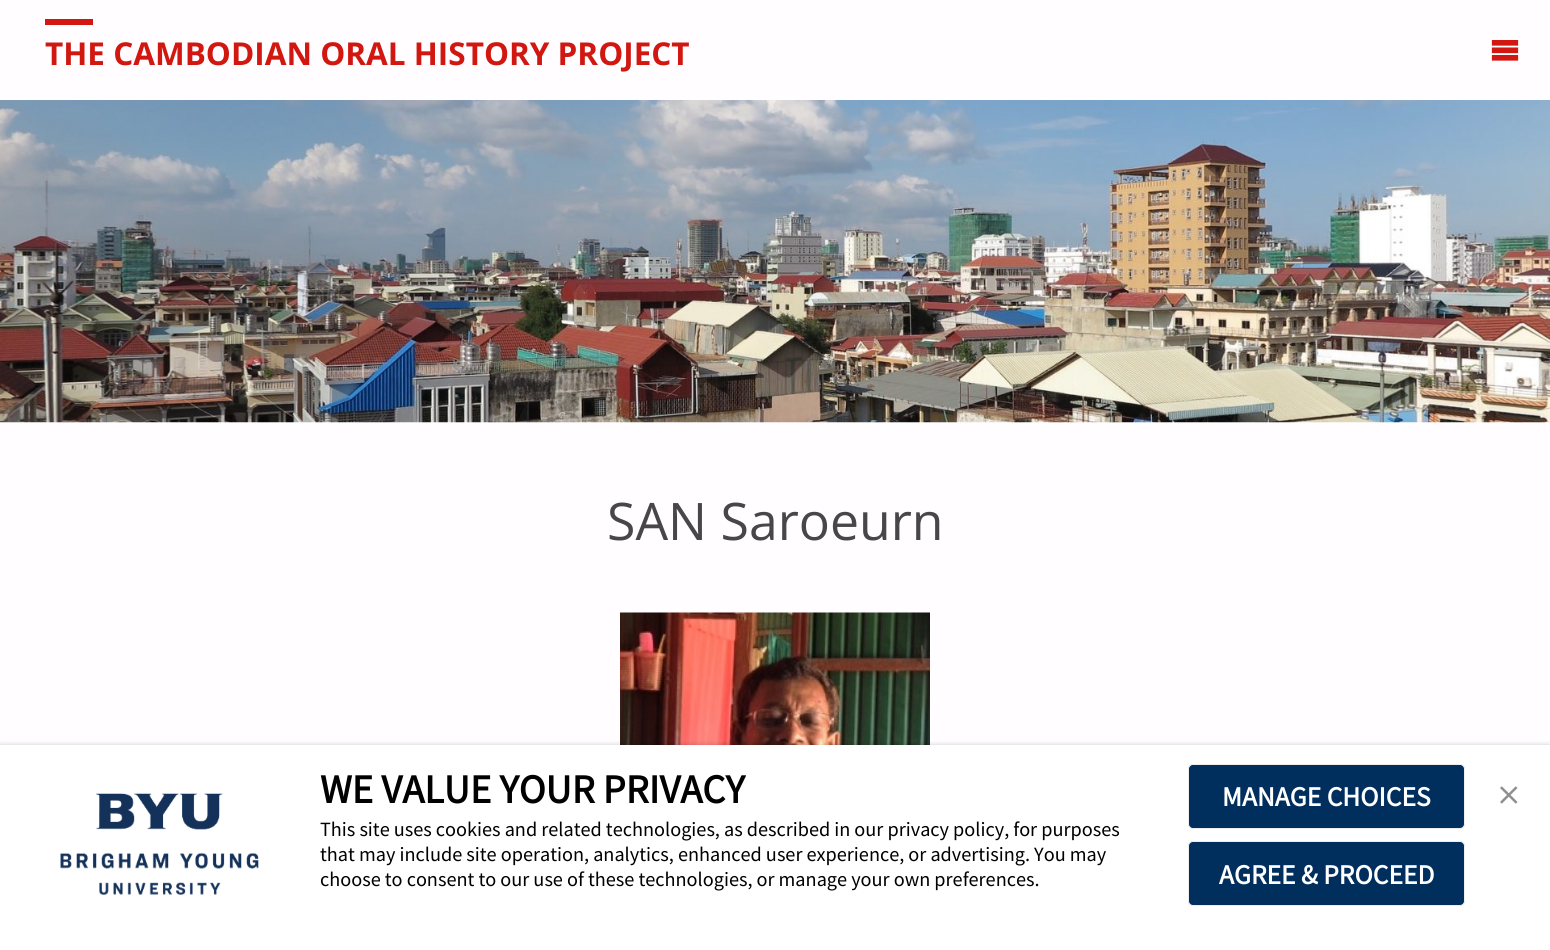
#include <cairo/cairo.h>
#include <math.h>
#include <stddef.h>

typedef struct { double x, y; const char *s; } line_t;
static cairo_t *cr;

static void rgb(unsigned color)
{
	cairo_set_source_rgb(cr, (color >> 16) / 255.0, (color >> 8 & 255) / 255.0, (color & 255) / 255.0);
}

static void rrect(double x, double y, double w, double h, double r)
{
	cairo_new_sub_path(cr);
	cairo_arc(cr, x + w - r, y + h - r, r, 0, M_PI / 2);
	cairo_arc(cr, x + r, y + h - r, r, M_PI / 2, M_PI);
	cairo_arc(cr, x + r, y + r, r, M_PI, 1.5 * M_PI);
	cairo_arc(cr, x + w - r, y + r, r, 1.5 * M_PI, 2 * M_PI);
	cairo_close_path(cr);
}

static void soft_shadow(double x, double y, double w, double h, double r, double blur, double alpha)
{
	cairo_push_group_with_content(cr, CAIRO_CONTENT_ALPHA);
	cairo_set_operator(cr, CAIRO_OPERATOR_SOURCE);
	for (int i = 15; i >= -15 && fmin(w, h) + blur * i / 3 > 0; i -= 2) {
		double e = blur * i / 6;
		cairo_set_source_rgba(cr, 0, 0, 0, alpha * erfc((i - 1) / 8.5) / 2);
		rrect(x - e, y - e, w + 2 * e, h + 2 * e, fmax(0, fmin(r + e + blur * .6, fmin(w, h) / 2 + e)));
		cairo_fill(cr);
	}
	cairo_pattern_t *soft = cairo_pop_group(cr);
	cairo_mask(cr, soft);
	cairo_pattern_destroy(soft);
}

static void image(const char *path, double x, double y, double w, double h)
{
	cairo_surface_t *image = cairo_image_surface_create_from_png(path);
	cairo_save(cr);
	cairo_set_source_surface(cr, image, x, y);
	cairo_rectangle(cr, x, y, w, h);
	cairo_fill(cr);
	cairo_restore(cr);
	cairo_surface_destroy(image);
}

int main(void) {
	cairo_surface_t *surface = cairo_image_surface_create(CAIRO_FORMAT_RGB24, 1550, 950);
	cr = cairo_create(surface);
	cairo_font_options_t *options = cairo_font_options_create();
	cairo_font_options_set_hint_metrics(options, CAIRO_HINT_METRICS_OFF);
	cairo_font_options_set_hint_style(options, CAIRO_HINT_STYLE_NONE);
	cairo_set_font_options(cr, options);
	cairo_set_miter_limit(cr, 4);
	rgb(0xfffdff);
	cairo_paint(cr);
	rgb(0xd11710);
	cairo_rectangle(cr, 45, 19, 48, 6);
	cairo_fill(cr);
	image("img/1.png", 1491, 40, 28, 21);
	image("img/2.png", 0, 100, 1550, 323);
	image("img/3.png", 620, 612, 310, 133);
	rgb(0x000000);
	soft_shadow(0, 745, 1550, 205, 0, 2.5, 0.2);
	rgb(0xffffff);
	cairo_rectangle(cr, 0, 745, 1550, 205);
	cairo_fill(cr);
	image("img/4.png", 60, 793, 199, 102);
	image("img/5.png", 1500, 786, 18, 18);
	rgb(0x002e5d);
	rrect(1188.5, 764.5, 276, 64, 4.5);
	cairo_fill_preserve(cr);
	rgb(0xeeeeee);
	cairo_set_line_width(cr, 1);
	cairo_stroke(cr);
	rgb(0x002e5d);
	rrect(1188.5, 841.5, 276, 64, 4.5);
	cairo_fill_preserve(cr);
	rgb(0xeeeeee);
	cairo_stroke(cr);
	cairo_select_font_face(cr, "Open Sans", CAIRO_FONT_SLANT_NORMAL, CAIRO_FONT_WEIGHT_BOLD);
	cairo_set_font_size(cr, 31.5);
	rgb(0xd11710);
	cairo_move_to(cr, 45, 65);
	cairo_show_text(cr, "THE CAMBODIAN ORAL HISTORY PROJECT");
	cairo_select_font_face(cr, "Open Sans", CAIRO_FONT_SLANT_NORMAL, CAIRO_FONT_WEIGHT_NORMAL);
	cairo_set_font_size(cr, 51.75);
	rgb(0x474747);
	cairo_move_to(cr, 607, 540);
	cairo_show_text(cr, "SAN Saroeurn");
	cairo_select_font_face(cr, "Source Sans Pro", CAIRO_FONT_SLANT_NORMAL, CAIRO_FONT_WEIGHT_BOLD);
	cairo_set_font_size(cr, 40.5);
	rgb(0x000000);
	cairo_move_to(cr, 320, 803);
	cairo_show_text(cr, "WE VALUE YOUR PRIVACY");
	cairo_select_font_face(cr, "Source Sans Pro", CAIRO_FONT_SLANT_NORMAL, CAIRO_FONT_WEIGHT_NORMAL);
	cairo_set_font_size(cr, 20.25);
	{
		static const line_t items[] = {
			{320, 836, "This site uses cookies and related technologies, as described in our privacy policy, for purposes"},
			{320, 861, "that may include site operation, analytics, enhanced user experience, or advertising. You may"},
			{320, 886, "choose to consent to our use of these technologies, or manage your own preferences."},
		};
		for (size_t i = 0; i < sizeof items / sizeof *items; i++) {
			cairo_move_to(cr, items[i].x, items[i].y);
			cairo_show_text(cr, items[i].s);
		}
	}
	cairo_select_font_face(cr, "Source Sans Pro", CAIRO_FONT_SLANT_NORMAL, CAIRO_FONT_WEIGHT_BOLD);
	cairo_set_font_size(cr, 27.5);
	rgb(0xffffff);
	cairo_move_to(cr, 1222, 806);
	cairo_show_text(cr, "MANAGE CHOICES");
	cairo_move_to(cr, 1219, 884);
	cairo_show_text(cr, "AGREE & PROCEED");
	cairo_surface_write_to_png(surface, "page.png");
	cairo_font_options_destroy(options);
	cairo_destroy(cr);
	cairo_surface_destroy(surface);
	return 0;
}
